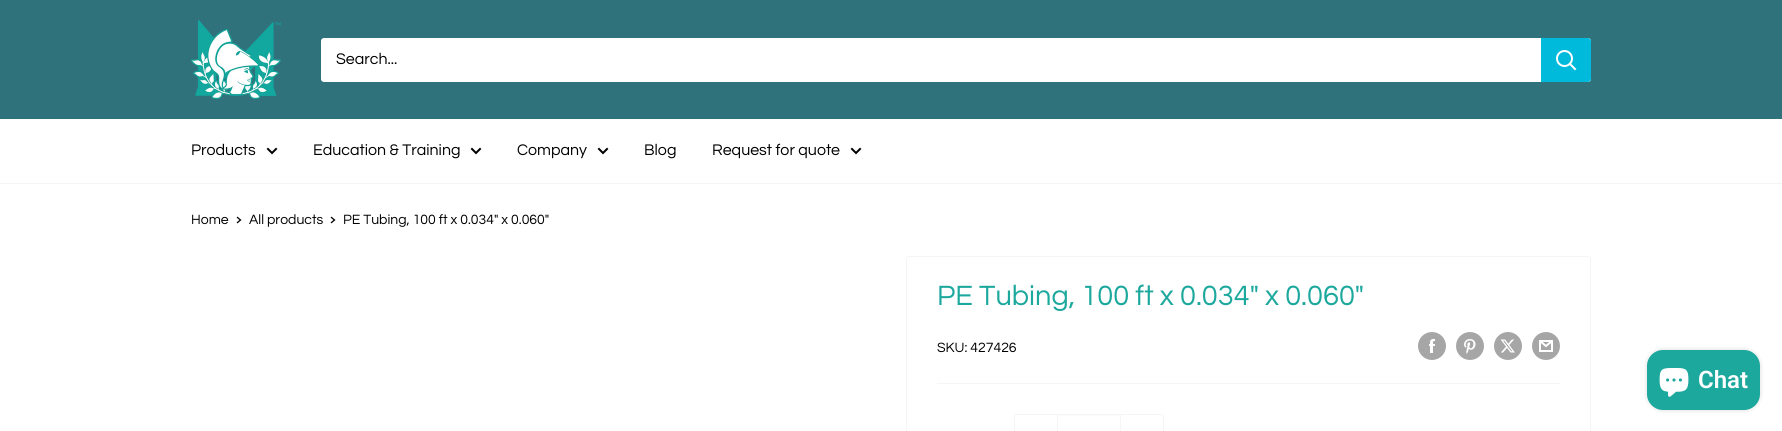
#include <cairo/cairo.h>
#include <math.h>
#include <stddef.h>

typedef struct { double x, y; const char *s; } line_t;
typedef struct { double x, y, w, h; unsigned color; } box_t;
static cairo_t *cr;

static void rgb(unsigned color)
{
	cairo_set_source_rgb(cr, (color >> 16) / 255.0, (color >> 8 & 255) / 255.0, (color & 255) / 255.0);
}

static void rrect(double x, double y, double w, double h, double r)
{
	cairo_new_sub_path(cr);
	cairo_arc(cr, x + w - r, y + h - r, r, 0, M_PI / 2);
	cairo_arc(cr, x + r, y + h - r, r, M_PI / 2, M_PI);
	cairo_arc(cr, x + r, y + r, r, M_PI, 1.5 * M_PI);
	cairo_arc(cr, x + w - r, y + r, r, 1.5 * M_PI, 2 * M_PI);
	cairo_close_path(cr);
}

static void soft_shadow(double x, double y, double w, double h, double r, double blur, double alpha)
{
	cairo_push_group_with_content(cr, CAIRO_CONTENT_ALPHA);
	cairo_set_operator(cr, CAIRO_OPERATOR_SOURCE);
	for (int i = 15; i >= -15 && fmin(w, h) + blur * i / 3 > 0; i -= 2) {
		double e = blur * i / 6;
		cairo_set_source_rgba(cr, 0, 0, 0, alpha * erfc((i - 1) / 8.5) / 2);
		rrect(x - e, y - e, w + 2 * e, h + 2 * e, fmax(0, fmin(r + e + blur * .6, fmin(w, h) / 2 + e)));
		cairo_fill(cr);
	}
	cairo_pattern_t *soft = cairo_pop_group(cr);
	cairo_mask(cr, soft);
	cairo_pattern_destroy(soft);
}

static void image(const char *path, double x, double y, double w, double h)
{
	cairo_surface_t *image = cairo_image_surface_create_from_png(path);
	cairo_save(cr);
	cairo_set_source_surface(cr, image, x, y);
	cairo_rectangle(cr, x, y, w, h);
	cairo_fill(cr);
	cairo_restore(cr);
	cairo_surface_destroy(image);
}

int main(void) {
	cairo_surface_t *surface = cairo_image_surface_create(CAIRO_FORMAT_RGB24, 1782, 431);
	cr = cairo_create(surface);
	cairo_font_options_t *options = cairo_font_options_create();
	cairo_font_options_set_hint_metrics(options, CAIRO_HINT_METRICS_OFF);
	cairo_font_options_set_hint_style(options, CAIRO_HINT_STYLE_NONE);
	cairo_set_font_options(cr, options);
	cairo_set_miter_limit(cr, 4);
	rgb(0xffffff);
	cairo_paint(cr);
	rgb(0x2f727c);
	cairo_rectangle(cr, 0, 0, 1782, 119);
	cairo_fill(cr);
	image("img/1.png", 191, 20, 90, 79);
	rgb(0xffffff);
	rrect(321, 38, 1270, 44, 3);
	cairo_fill(cr);
	rgb(0x00badb);
	cairo_new_path(cr);
	cairo_move_to(cr, 1541, 38);
	cairo_line_to(cr, 1588, 38);
	cairo_curve_to(cr, 1589.5, 38, 1591, 39.5, 1591, 41);
	cairo_line_to(cr, 1591, 79);
	cairo_curve_to(cr, 1591, 80.5, 1589.5, 82, 1588, 82);
	cairo_line_to(cr, 1541, 82);
	cairo_close_path(cr);
	cairo_fill(cr);
	cairo_new_path(cr);
	cairo_move_to(cr, 1575, 69);
	cairo_line_to(cr, 1570, 64);
	rgb(0xffffff);
	cairo_set_line_cap(cr, CAIRO_LINE_CAP_SQUARE);
	cairo_stroke(cr);
	cairo_arc(cr, 1564.5, 58.5, 7.5, 0, 2 * M_PI);
	cairo_set_line_cap(cr, CAIRO_LINE_CAP_BUTT);
	cairo_stroke(cr);
	rgb(0xf3f5f6);
	cairo_rectangle(cr, 0, 183, 1782, 1);
	cairo_fill(cr);
	cairo_new_path(cr);
	cairo_move_to(cr, 276, 149);
	cairo_line_to(cr, 272, 153);
	cairo_line_to(cr, 268, 149);
	rgb(0x000000);
	cairo_set_line_cap(cr, CAIRO_LINE_CAP_SQUARE);
	cairo_stroke(cr);
	cairo_new_path(cr);
	cairo_move_to(cr, 480, 149);
	cairo_line_to(cr, 476, 153);
	cairo_line_to(cr, 472, 149);
	cairo_stroke(cr);
	cairo_new_path(cr);
	cairo_move_to(cr, 607, 149);
	cairo_line_to(cr, 603, 153);
	cairo_line_to(cr, 599, 149);
	cairo_stroke(cr);
	cairo_new_path(cr);
	cairo_move_to(cr, 860, 149);
	cairo_line_to(cr, 856, 153);
	cairo_line_to(cr, 852, 149);
	cairo_stroke(cr);
	cairo_new_path(cr);
	cairo_move_to(cr, 237.5, 217.5);
	cairo_line_to(cr, 240.5, 220);
	cairo_line_to(cr, 237.5, 222.5);
	cairo_set_line_width(cr, 1.3);
	cairo_stroke(cr);
	cairo_new_path(cr);
	cairo_move_to(cr, 331.5, 217.5);
	cairo_line_to(cr, 334.5, 220);
	cairo_line_to(cr, 331.5, 222.5);
	cairo_stroke(cr);
	rrect(906.5, 256.5, 684, 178, 2.5);
	rgb(0xf3f5f6);
	cairo_set_line_width(cr, 1);
	cairo_set_line_cap(cr, CAIRO_LINE_CAP_BUTT);
	cairo_stroke(cr);
	image("img/2.png", 1418, 332, 28, 28);
	image("img/3.png", 1456, 332, 28, 28);
	image("img/4.png", 1494, 332, 28, 28);
	image("img/5.png", 1532, 332, 28, 28);
	cairo_rectangle(cr, 937, 383, 623, 1);
	cairo_fill(cr);
	rrect(1014.5, 414.5, 149, 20, 2.5);
	cairo_stroke(cr);
	{
		static const box_t items[] = {
			{1058, 415, 62, 1, 0xfafbfb},
			{1120, 415, 1, 16, 0xf3f5f6},
			{1057, 415, 1, 16, 0xf3f5f6},
		};
		for (size_t i = 0; i < sizeof items / sizeof *items; i++) {
			rgb(items[i].color);
			cairo_rectangle(cr, items[i].x, items[i].y, items[i].w, items[i].h);
			cairo_fill(cr);
		}
	}
	rgb(0x000000);
	soft_shadow(1647, 350, 113, 60, 16, 2.5, 0.15);
	rgb(0x1da89e);
	rrect(1647, 350, 113, 60, 16);
	cairo_fill(cr);
	image("img/6.png", 1659, 368, 30, 29);
	cairo_select_font_face(cr, "Questrial", CAIRO_FONT_SLANT_NORMAL, CAIRO_FONT_WEIGHT_NORMAL);
	cairo_set_font_size(cr, 16);
	rgb(0x000000);
	{
		static const line_t items[] = {
			{336, 64, "Search..."},
			{191, 155, "Products"},
			{313, 155, "Education & Training"},
			{517, 155, "Company"},
			{644, 155, "Blog"},
			{712, 155, "Request for quote"},
		};
		for (size_t i = 0; i < sizeof items / sizeof *items; i++) {
			cairo_move_to(cr, items[i].x, items[i].y);
			cairo_show_text(cr, items[i].s);
		}
	}
	cairo_set_font_size(cr, 14);
	{
		static const line_t items[] = {
			{191, 224, "Home"},
			{249, 224, "All products"},
			{343, 224, "PE Tubing, 100 ft x 0.034\" x 0.060\""},
		};
		for (size_t i = 0; i < sizeof items / sizeof *items; i++) {
			cairo_move_to(cr, items[i].x, items[i].y);
			cairo_show_text(cr, items[i].s);
		}
	}
	cairo_set_font_size(cr, 29);
	rgb(0x1da89e);
	cairo_move_to(cr, 937, 305);
	cairo_show_text(cr, "PE Tubing, 100 ft x 0.034\" x 0.060\"");
	cairo_set_font_size(cr, 14);
	rgb(0x000000);
	cairo_move_to(cr, 937, 352);
	cairo_show_text(cr, "SKU: 427426");
	cairo_select_font_face(cr, "Roboto SemiBold", CAIRO_FONT_SLANT_NORMAL, CAIRO_FONT_WEIGHT_NORMAL);
	cairo_set_font_size(cr, 24);
	rgb(0xffffff);
	cairo_move_to(cr, 1698, 388);
	cairo_show_text(cr, "Chat");
	cairo_surface_write_to_png(surface, "page.png");
	cairo_font_options_destroy(options);
	cairo_destroy(cr);
	cairo_surface_destroy(surface);
	return 0;
}
